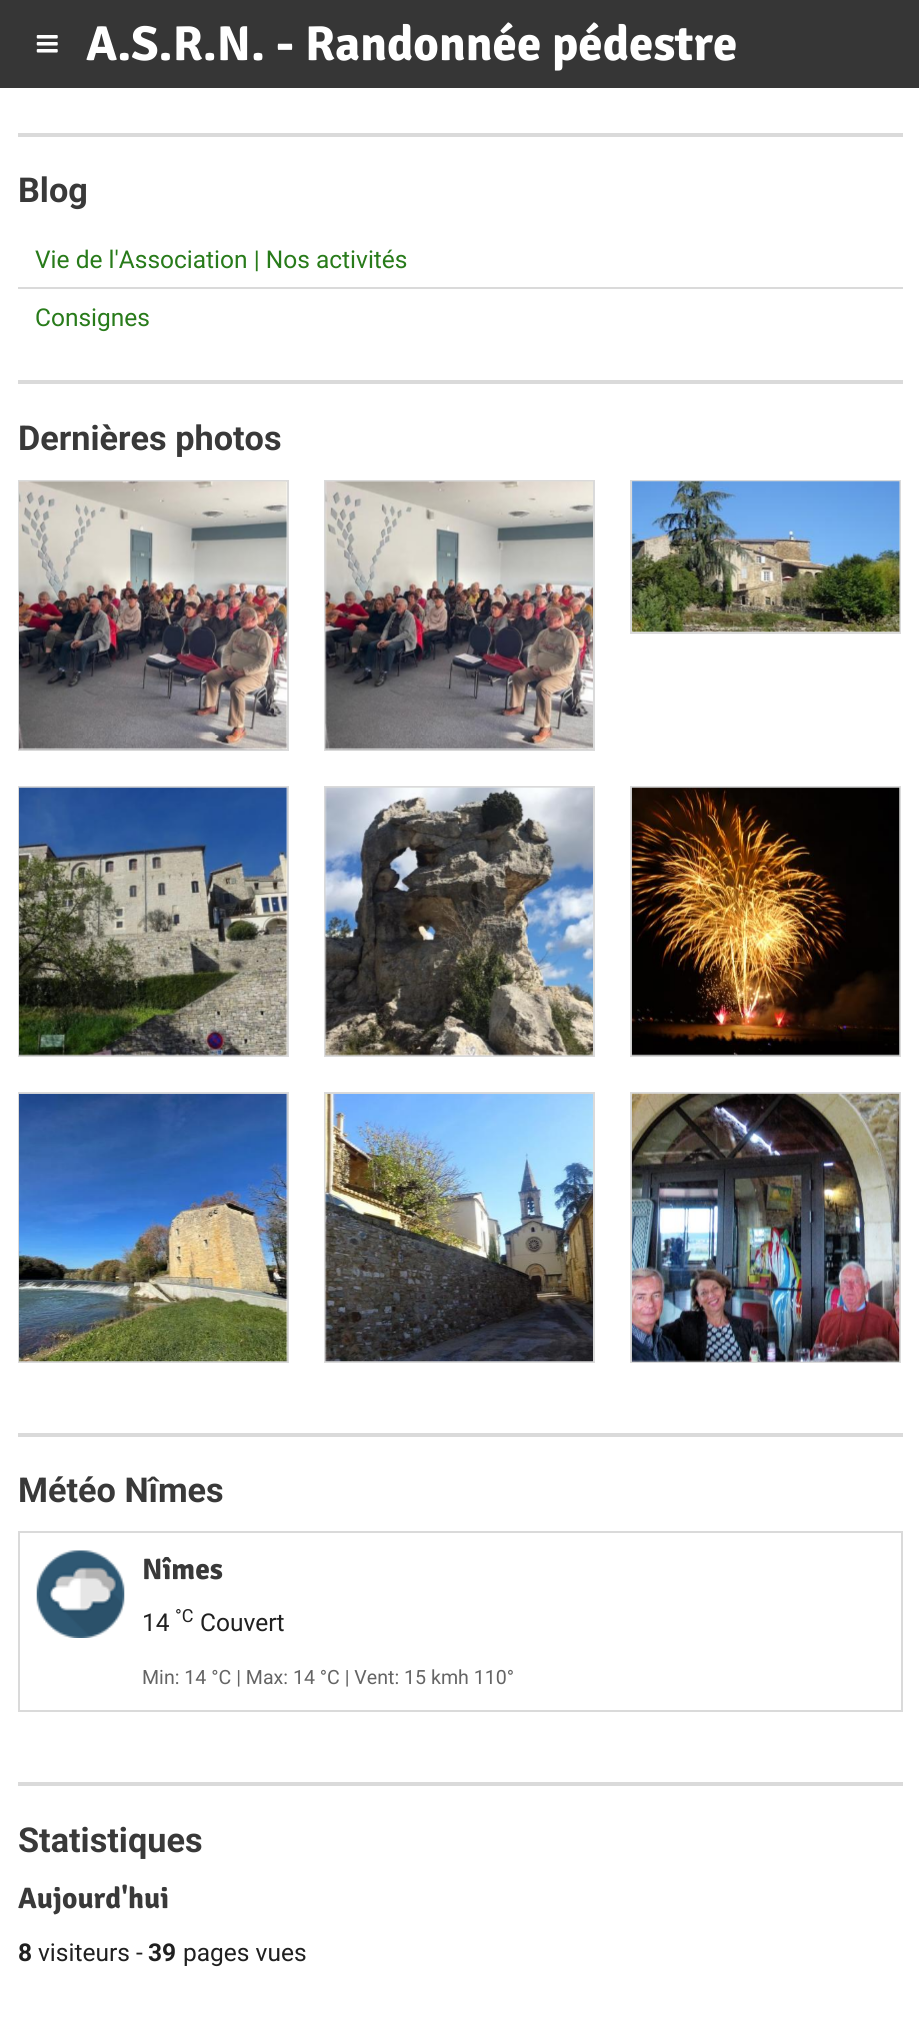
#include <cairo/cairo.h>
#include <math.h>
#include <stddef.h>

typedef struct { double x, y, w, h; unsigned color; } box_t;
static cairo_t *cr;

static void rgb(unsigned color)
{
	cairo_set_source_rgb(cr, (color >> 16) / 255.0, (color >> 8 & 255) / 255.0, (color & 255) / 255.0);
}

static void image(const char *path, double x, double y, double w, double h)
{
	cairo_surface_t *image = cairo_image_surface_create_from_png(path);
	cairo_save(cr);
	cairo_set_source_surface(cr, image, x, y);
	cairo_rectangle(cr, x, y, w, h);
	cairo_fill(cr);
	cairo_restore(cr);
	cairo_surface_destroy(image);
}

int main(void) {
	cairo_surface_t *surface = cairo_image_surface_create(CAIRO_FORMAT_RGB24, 919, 2017);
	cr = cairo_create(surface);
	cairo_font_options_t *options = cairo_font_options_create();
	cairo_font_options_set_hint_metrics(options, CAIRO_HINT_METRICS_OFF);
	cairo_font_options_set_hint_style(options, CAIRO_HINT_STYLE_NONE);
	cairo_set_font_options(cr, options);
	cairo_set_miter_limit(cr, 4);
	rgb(0xffffff);
	cairo_paint(cr);
	rgb(0x363636);
	cairo_rectangle(cr, 0, 0, 919, 88);
	cairo_fill(cr);
	image("img/1.png", 36, 35, 22, 18);
	{
		static const box_t items[] = {
			{18, 133, 885, 4, 0xdadada},
			{18, 380, 885, 4, 0xdadada},
			{18, 287, 885, 2, 0xdadada},
			{18, 1433, 885, 4, 0xdadada},
		};
		for (size_t i = 0; i < sizeof items / sizeof *items; i++) {
			rgb(items[i].color);
			cairo_rectangle(cr, items[i].x, items[i].y, items[i].w, items[i].h);
			cairo_fill(cr);
		}
	}
	cairo_rectangle(cr, 19, 481, 269, 269);
	cairo_stroke(cr);
	image("img/2.png", 19, 481, 269, 269);
	cairo_rectangle(cr, 325, 481, 269, 269);
	cairo_stroke(cr);
	image("img/3.png", 325, 481, 268, 269);
	cairo_rectangle(cr, 631, 481, 269, 152);
	cairo_stroke(cr);
	image("img/4.png", 632, 481, 268, 151);
	cairo_rectangle(cr, 19, 787, 269, 269);
	cairo_stroke(cr);
	image("img/5.png", 19, 787, 269, 269);
	cairo_rectangle(cr, 325, 787, 269, 269);
	cairo_stroke(cr);
	image("img/6.png", 325, 787, 268, 269);
	cairo_rectangle(cr, 631, 787, 269, 269);
	cairo_stroke(cr);
	image("img/7.png", 631, 787, 269, 269);
	cairo_rectangle(cr, 19, 1093, 269, 269);
	cairo_stroke(cr);
	image("img/8.png", 19, 1093, 269, 269);
	cairo_rectangle(cr, 325, 1093, 269, 269);
	cairo_stroke(cr);
	image("img/9.png", 325, 1093, 268, 269);
	cairo_rectangle(cr, 631, 1093, 269, 269);
	cairo_stroke(cr);
	image("img/10.png", 631, 1093, 269, 269);
	cairo_rectangle(cr, 18, 1782, 885, 4);
	cairo_fill(cr);
	cairo_rectangle(cr, 19, 1532, 883, 179);
	cairo_stroke(cr);
	image("img/11.png", 36, 1550, 89, 88);
	cairo_select_font_face(cr, "Signika", CAIRO_FONT_SLANT_NORMAL, CAIRO_FONT_WEIGHT_BOLD);
	cairo_set_font_size(cr, 49);
	rgb(0xffffff);
	cairo_move_to(cr, 86, 60);
	cairo_show_text(cr, "A.S.R.N. - Randonnée pédestre");
	cairo_select_font_face(cr, "Roboto", CAIRO_FONT_SLANT_NORMAL, CAIRO_FONT_WEIGHT_BOLD);
	cairo_set_font_size(cr, 34.25);
	rgb(0x393939);
	cairo_move_to(cr, 18, 202);
	cairo_show_text(cr, "Blog");
	cairo_select_font_face(cr, "Roboto", CAIRO_FONT_SLANT_NORMAL, CAIRO_FONT_WEIGHT_NORMAL);
	cairo_set_font_size(cr, 24.5);
	rgb(0x287b1a);
	cairo_move_to(cr, 35, 268);
	cairo_show_text(cr, "Vie de l'Association | Nos activités");
	cairo_move_to(cr, 35, 326);
	cairo_show_text(cr, "Consignes");
	cairo_select_font_face(cr, "Roboto", CAIRO_FONT_SLANT_NORMAL, CAIRO_FONT_WEIGHT_BOLD);
	cairo_set_font_size(cr, 34.25);
	rgb(0x393939);
	cairo_move_to(cr, 18, 450);
	cairo_show_text(cr, "Dernières photos");
	cairo_move_to(cr, 18, 1502);
	cairo_show_text(cr, "Météo Nîmes");
	cairo_select_font_face(cr, "Signika", CAIRO_FONT_SLANT_NORMAL, CAIRO_FONT_WEIGHT_BOLD);
	cairo_set_font_size(cr, 29.5);
	cairo_move_to(cr, 142, 1579);
	cairo_show_text(cr, "Nîmes");
	cairo_select_font_face(cr, "Roboto", CAIRO_FONT_SLANT_NORMAL, CAIRO_FONT_WEIGHT_NORMAL);
	cairo_set_font_size(cr, 24.5);
	rgb(0x202020);
	cairo_move_to(cr, 142, 1631);
	cairo_show_text(cr, "14");
	cairo_set_font_size(cr, 18);
	cairo_move_to(cr, 175, 1622);
	cairo_show_text(cr, "°C");
	cairo_set_font_size(cr, 24.5);
	cairo_move_to(cr, 200, 1631);
	cairo_show_text(cr, "Couvert");
	cairo_set_font_size(cr, 19.6);
	rgb(0x646464);
	cairo_move_to(cr, 142, 1684);
	cairo_show_text(cr, "Min: 14 °C | Max: 14 °C | Vent: 15 kmh 110°");
	cairo_select_font_face(cr, "Roboto", CAIRO_FONT_SLANT_NORMAL, CAIRO_FONT_WEIGHT_BOLD);
	cairo_set_font_size(cr, 34.25);
	rgb(0x393939);
	cairo_move_to(cr, 18, 1852);
	cairo_show_text(cr, "Statistiques");
	cairo_select_font_face(cr, "Signika", CAIRO_FONT_SLANT_NORMAL, CAIRO_FONT_WEIGHT_BOLD);
	cairo_set_font_size(cr, 29.5);
	cairo_move_to(cr, 18, 1908);
	cairo_show_text(cr, "Aujourd'hui");
	cairo_select_font_face(cr, "Roboto", CAIRO_FONT_SLANT_NORMAL, CAIRO_FONT_WEIGHT_BOLD);
	cairo_set_font_size(cr, 24.5);
	rgb(0x202020);
	cairo_move_to(cr, 18, 1961);
	cairo_show_text(cr, "8");
	cairo_select_font_face(cr, "Roboto", CAIRO_FONT_SLANT_NORMAL, CAIRO_FONT_WEIGHT_NORMAL);
	cairo_move_to(cr, 38, 1961);
	cairo_show_text(cr, "visiteurs -");
	cairo_select_font_face(cr, "Roboto", CAIRO_FONT_SLANT_NORMAL, CAIRO_FONT_WEIGHT_BOLD);
	cairo_move_to(cr, 148, 1961);
	cairo_show_text(cr, "39");
	cairo_select_font_face(cr, "Roboto", CAIRO_FONT_SLANT_NORMAL, CAIRO_FONT_WEIGHT_NORMAL);
	cairo_move_to(cr, 183, 1961);
	cairo_show_text(cr, "pages vues");
	cairo_surface_write_to_png(surface, "page.png");
	cairo_font_options_destroy(options);
	cairo_destroy(cr);
	cairo_surface_destroy(surface);
	return 0;
}
